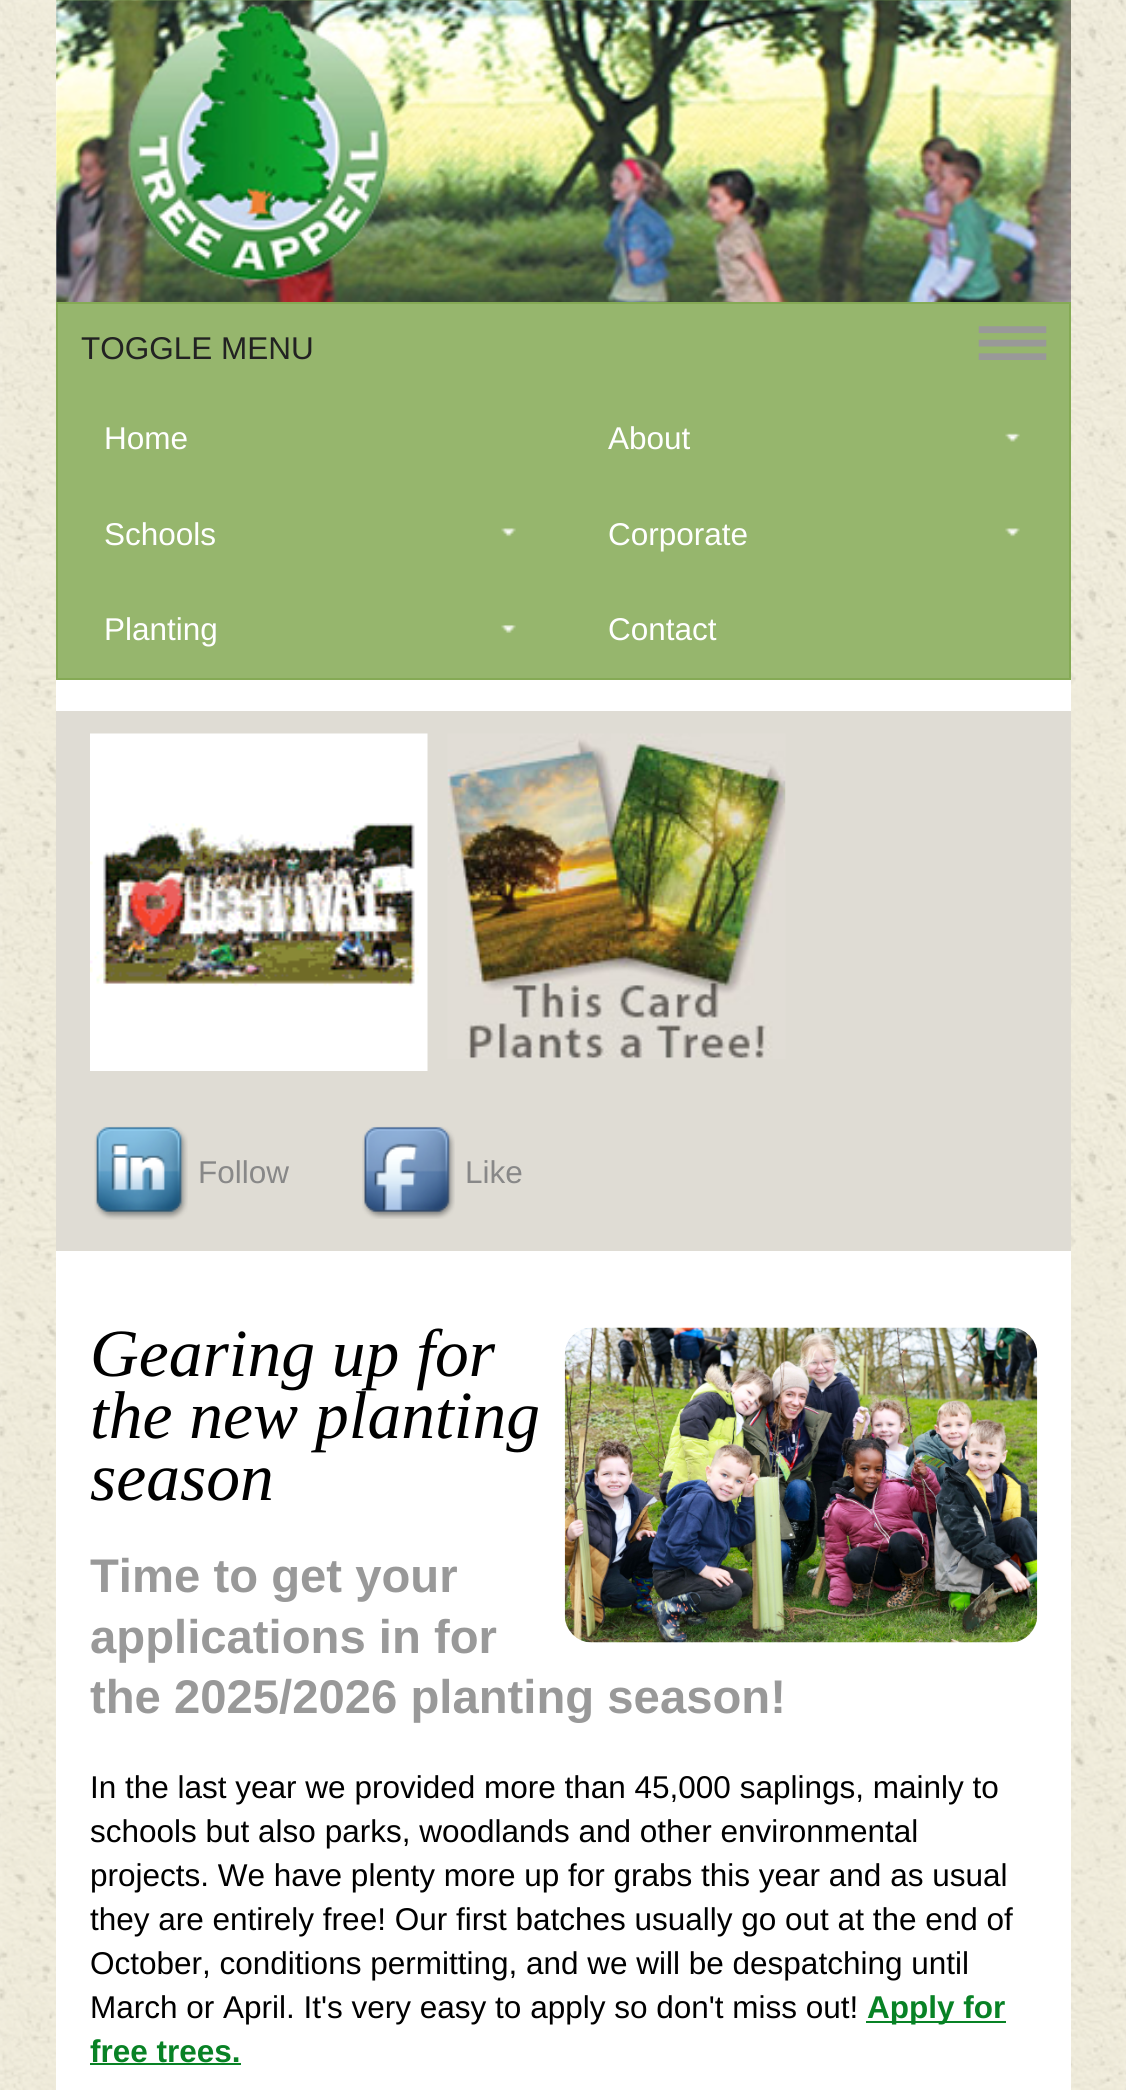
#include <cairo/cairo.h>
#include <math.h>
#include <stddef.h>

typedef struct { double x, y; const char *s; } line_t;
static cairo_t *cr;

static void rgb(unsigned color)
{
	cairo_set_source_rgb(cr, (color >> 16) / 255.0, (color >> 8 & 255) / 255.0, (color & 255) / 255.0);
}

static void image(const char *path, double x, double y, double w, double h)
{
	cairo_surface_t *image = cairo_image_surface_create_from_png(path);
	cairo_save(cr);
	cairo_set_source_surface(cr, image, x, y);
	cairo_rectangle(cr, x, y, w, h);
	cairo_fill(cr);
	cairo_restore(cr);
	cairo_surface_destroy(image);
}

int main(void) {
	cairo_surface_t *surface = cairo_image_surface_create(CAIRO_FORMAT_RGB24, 1126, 2090);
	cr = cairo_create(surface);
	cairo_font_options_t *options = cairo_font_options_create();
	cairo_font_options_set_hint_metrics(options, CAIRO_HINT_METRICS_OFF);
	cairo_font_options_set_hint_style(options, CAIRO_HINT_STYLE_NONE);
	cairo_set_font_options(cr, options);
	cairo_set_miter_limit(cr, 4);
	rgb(0xffffff);
	cairo_paint(cr);
	image("img/1.png", 0, 0, 1126, 2090);
	rgb(0xffffff);
	cairo_rectangle(cr, 56, 0, 1015, 2090);
	cairo_fill(cr);
	image("img/2.png", 56, 0, 1015, 302);
	image("img/3.png", 127, 2, 263, 280);
	rgb(0x96b66d);
	cairo_rectangle(cr, 57, 303, 1013, 376);
	cairo_fill_preserve(cr);
	rgb(0x85aa55);
	cairo_stroke(cr);
	image("img/4.png", 978, 326, 69, 34);
	image("img/5.png", 1005, 433, 15, 9);
	image("img/6.png", 501, 528, 15, 9);
	image("img/6.png", 1005, 528, 15, 9);
	image("img/7.png", 501, 625, 15, 8);
	rgb(0xdfdcd4);
	cairo_rectangle(cr, 56, 711, 1015, 540);
	cairo_fill(cr);
	image("img/8.png", 90, 733, 338, 338);
	image("img/9.png", 447, 733, 339, 326);
	image("img/10.png", 94, 1126, 94, 94);
	image("img/11.png", 362, 1126, 93, 93);
	image("img/12.png", 564, 1327, 474, 316);
	rgb(0x088225);
	cairo_rectangle(cr, 866, 2021, 140, 2);
	cairo_fill(cr);
	cairo_rectangle(cr, 90, 2063, 151, 2);
	cairo_fill(cr);
	cairo_select_font_face(cr, "Liberation Sans", CAIRO_FONT_SLANT_NORMAL, CAIRO_FONT_WEIGHT_NORMAL);
	cairo_set_font_size(cr, 31.5);
	rgb(0x222222);
	cairo_move_to(cr, 81, 359);
	cairo_show_text(cr, "TOGGLE MENU");
	rgb(0xffffff);
	{
		static const line_t items[] = {
			{104, 449, "Home"},
			{608, 449, "About"},
			{104, 545, "Schools"},
			{608, 545, "Corporate"},
			{104, 640, "Planting"},
			{608, 640, "Contact"},
		};
		for (size_t i = 0; i < sizeof items / sizeof *items; i++) {
			cairo_move_to(cr, items[i].x, items[i].y);
			cairo_show_text(cr, items[i].s);
		}
	}
	rgb(0x888888);
	cairo_move_to(cr, 198, 1183);
	cairo_show_text(cr, "Follow");
	cairo_move_to(cr, 465, 1183);
	cairo_show_text(cr, "Like");
	cairo_select_font_face(cr, "Liberation Serif", CAIRO_FONT_SLANT_ITALIC, CAIRO_FONT_WEIGHT_NORMAL);
	cairo_set_font_size(cr, 67.5);
	rgb(0x000000);
	{
		static const line_t items[] = {
			{90, 1376, "Gearing up for"},
			{90, 1438, "the new planting"},
			{90, 1500, "season"},
		};
		for (size_t i = 0; i < sizeof items / sizeof *items; i++) {
			cairo_move_to(cr, items[i].x, items[i].y);
			cairo_show_text(cr, items[i].s);
		}
	}
	cairo_select_font_face(cr, "Liberation Sans", CAIRO_FONT_SLANT_NORMAL, CAIRO_FONT_WEIGHT_BOLD);
	cairo_set_font_size(cr, 47.25);
	rgb(0x999999);
	{
		static const line_t items[] = {
			{90, 1592, "Time to get your"},
			{90, 1653, "applications in for"},
			{90, 1713, "the 2025/2026 planting season!"},
		};
		for (size_t i = 0; i < sizeof items / sizeof *items; i++) {
			cairo_move_to(cr, items[i].x, items[i].y);
			cairo_show_text(cr, items[i].s);
		}
	}
	cairo_select_font_face(cr, "Liberation Sans", CAIRO_FONT_SLANT_NORMAL, CAIRO_FONT_WEIGHT_NORMAL);
	cairo_set_font_size(cr, 31.5);
	rgb(0x000000);
	{
		static const line_t items[] = {
			{90, 1798, "In the last year we provided more than 45,000 saplings, mainly to"},
			{90, 1842, "schools but also parks, woodlands and other environmental"},
			{90, 1886, "projects. We have plenty more up for grabs this year and as usual"},
			{90, 1930, "they are entirely free! Our first batches usually go out at the end of"},
			{90, 1974, "October, conditions permitting, and we will be despatching until"},
			{90, 2018, "March or April. It's very easy to apply so don't miss out!"},
		};
		for (size_t i = 0; i < sizeof items / sizeof *items; i++) {
			cairo_move_to(cr, items[i].x, items[i].y);
			cairo_show_text(cr, items[i].s);
		}
	}
	cairo_select_font_face(cr, "Liberation Sans", CAIRO_FONT_SLANT_NORMAL, CAIRO_FONT_WEIGHT_BOLD);
	rgb(0x088225);
	cairo_move_to(cr, 867, 2018);
	cairo_show_text(cr, "Apply for");
	cairo_move_to(cr, 90, 2062);
	cairo_show_text(cr, "free trees.");
	cairo_surface_write_to_png(surface, "page.png");
	cairo_font_options_destroy(options);
	cairo_destroy(cr);
	cairo_surface_destroy(surface);
	return 0;
}
